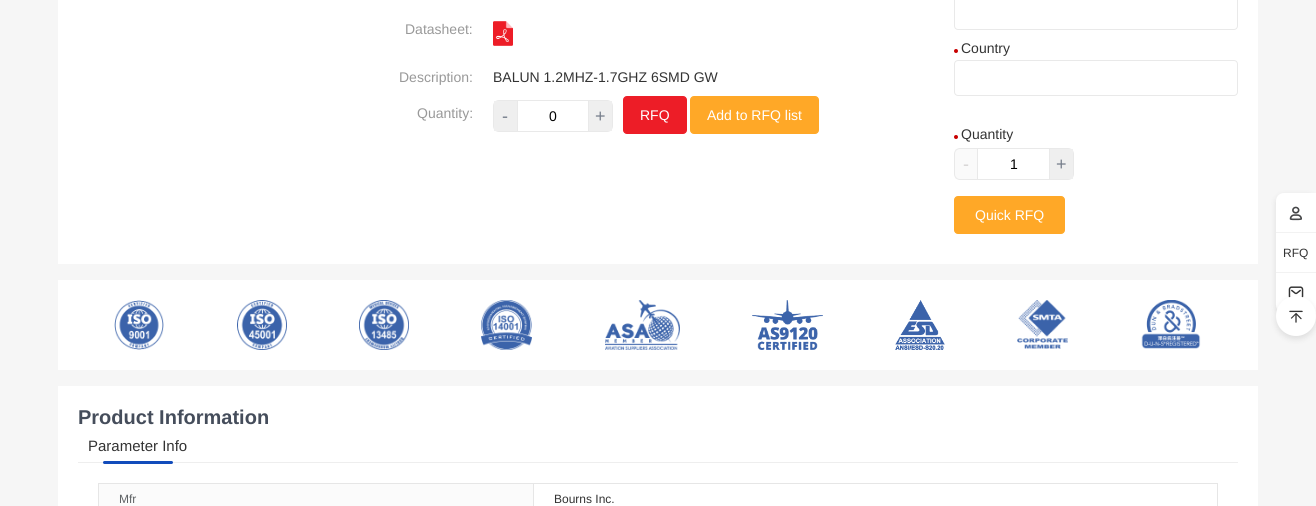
#include <cairo/cairo.h>
#include <math.h>
#include <stddef.h>

typedef struct { double x, y, w, h; unsigned color; } box_t;
static cairo_t *cr;

static void rgb(unsigned color)
{
	cairo_set_source_rgb(cr, (color >> 16) / 255.0, (color >> 8 & 255) / 255.0, (color & 255) / 255.0);
}

static void rrect(double x, double y, double w, double h, double r)
{
	cairo_new_sub_path(cr);
	cairo_arc(cr, x + w - r, y + h - r, r, 0, M_PI / 2);
	cairo_arc(cr, x + r, y + h - r, r, M_PI / 2, M_PI);
	cairo_arc(cr, x + r, y + r, r, M_PI, 1.5 * M_PI);
	cairo_arc(cr, x + w - r, y + r, r, 1.5 * M_PI, 2 * M_PI);
	cairo_close_path(cr);
}

static void soft_shadow(double x, double y, double w, double h, double r, double blur, double alpha)
{
	cairo_push_group_with_content(cr, CAIRO_CONTENT_ALPHA);
	cairo_set_operator(cr, CAIRO_OPERATOR_SOURCE);
	for (int i = 15; i >= -15 && fmin(w, h) + blur * i / 3 > 0; i -= 2) {
		double e = blur * i / 6;
		cairo_set_source_rgba(cr, 0, 0, 0, alpha * erfc((i - 1) / 8.5) / 2);
		rrect(x - e, y - e, w + 2 * e, h + 2 * e, fmax(0, fmin(r + e + blur * .6, fmin(w, h) / 2 + e)));
		cairo_fill(cr);
	}
	cairo_pattern_t *soft = cairo_pop_group(cr);
	cairo_mask(cr, soft);
	cairo_pattern_destroy(soft);
}

static void image(const char *path, double x, double y, double w, double h)
{
	cairo_surface_t *image = cairo_image_surface_create_from_png(path);
	cairo_save(cr);
	cairo_set_source_surface(cr, image, x, y);
	cairo_rectangle(cr, x, y, w, h);
	cairo_fill(cr);
	cairo_restore(cr);
	cairo_surface_destroy(image);
}

int main(void) {
	cairo_surface_t *surface = cairo_image_surface_create(CAIRO_FORMAT_RGB24, 1316, 506);
	cr = cairo_create(surface);
	cairo_font_options_t *options = cairo_font_options_create();
	cairo_font_options_set_hint_metrics(options, CAIRO_HINT_METRICS_OFF);
	cairo_font_options_set_hint_style(options, CAIRO_HINT_STYLE_NONE);
	cairo_set_font_options(cr, options);
	cairo_set_miter_limit(cr, 4);
	rgb(0xf6f6f6);
	cairo_paint(cr);
	rgb(0xffffff);
	cairo_rectangle(cr, 58, 0, 1200, 264);
	cairo_fill(cr);
	image("img/1.png", 493, 21, 20, 25);
	rrect(493.5, 100.5, 119, 31, 5.5);
	rgb(0xe9e9e9);
	cairo_set_line_width(cr, 1);
	cairo_stroke(cr);
	{
		static const box_t items[] = {
			{494, 101, 23, 30, 0xefefef},
			{517, 101, 1, 30, 0xe9e9e9},
			{589, 101, 23, 30, 0xefefef},
			{588, 101, 1, 30, 0xe9e9e9},
		};
		for (size_t i = 0; i < sizeof items / sizeof *items; i++) {
			rgb(items[i].color);
			cairo_rectangle(cr, items[i].x, items[i].y, items[i].w, items[i].h);
			cairo_fill(cr);
		}
	}
	rgb(0xed1d27);
	rrect(623.5, 96.5, 63, 37, 3.5);
	cairo_fill_preserve(cr);
	cairo_stroke(cr);
	rgb(0xffa827);
	rrect(690.5, 96.5, 128, 37, 3.5);
	cairo_fill_preserve(cr);
	cairo_stroke(cr);
	rrect(954.5, -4.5, 283, 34, 3.5);
	rgb(0xe9e9e9);
	cairo_stroke(cr);
	rgb(0xc80000);
	cairo_arc(cr, 956, 51, 2, 0, 2 * M_PI);
	cairo_fill(cr);
	rrect(954.5, 60.5, 283, 35, 3.5);
	rgb(0xe9e9e9);
	cairo_stroke(cr);
	rgb(0xc80000);
	cairo_arc(cr, 956, 137, 2, 0, 2 * M_PI);
	cairo_fill(cr);
	rrect(954.5, 148.5, 119, 31, 5.5);
	rgb(0xe9e9e9);
	cairo_stroke(cr);
	cairo_set_source_rgba(cr, 0.937, 0.937, 0.937, 0.3);
	cairo_rectangle(cr, 955, 149, 22, 30);
	cairo_fill(cr);
	rgb(0xe9e9e9);
	cairo_rectangle(cr, 977, 149, 1, 30);
	cairo_fill(cr);
	rgb(0xefefef);
	cairo_rectangle(cr, 1050, 149, 23, 30);
	cairo_fill(cr);
	rgb(0xe9e9e9);
	cairo_rectangle(cr, 1049, 149, 1, 30);
	cairo_fill(cr);
	rgb(0xffa827);
	rrect(954.5, 196.5, 110, 37, 3.5);
	cairo_fill_preserve(cr);
	cairo_stroke(cr);
	rgb(0xffffff);
	cairo_rectangle(cr, 58, 280, 1200, 90);
	cairo_fill(cr);
	image("img/2.png", 114, 300, 50, 50);
	image("img/3.png", 237, 300, 50, 50);
	image("img/4.png", 359, 300, 50, 50);
	image("img/5.png", 481, 300, 51, 50);
	image("img/6.png", 605, 300, 75, 50);
	image("img/7.png", 752, 300, 71, 50);
	image("img/8.png", 895, 300, 50, 50);
	image("img/9.png", 1017, 300, 51, 49);
	image("img/10.png", 1141, 300, 60, 49);
	cairo_rectangle(cr, 58, 386, 1200, 120);
	cairo_fill(cr);
	rgb(0xeeeeee);
	cairo_rectangle(cr, 78, 462, 1160, 1);
	cairo_fill(cr);
	rgb(0x124cbb);
	rrect(103, 461, 70, 3, 1.5);
	cairo_fill(cr);
	{
		static const box_t items[] = {
			{99, 484, 434, 22, 0xfbfbfb},
			{533, 483, 685, 1, 0xe6e6e6},
			{533, 483, 1, 23, 0xe6e6e6},
			{98, 483, 436, 1, 0xe6e6e6},
			{98, 483, 1, 23, 0xe6e6e6},
			{1217, 483, 1, 23, 0xe6e6e6},
		};
		for (size_t i = 0; i < sizeof items / sizeof *items; i++) {
			rgb(items[i].color);
			cairo_rectangle(cr, items[i].x, items[i].y, items[i].w, items[i].h);
			cairo_fill(cr);
		}
	}
	rgb(0x000000);
	soft_shadow(1276, 195, 40, 120, 8, 3, 0.1);
	rgb(0xffffff);
	cairo_new_path(cr);
	cairo_move_to(cr, 1284, 193);
	cairo_line_to(cr, 1316, 193);
	cairo_line_to(cr, 1316, 233);
	cairo_line_to(cr, 1276, 233);
	cairo_line_to(cr, 1276, 201);
	cairo_curve_to(cr, 1276, 196.5, 1279.5, 193, 1284, 193);
	cairo_close_path(cr);
	cairo_fill(cr);
	rgb(0xf2f2f2);
	cairo_rectangle(cr, 1276, 232, 40, 1);
	cairo_fill(cr);
	image("img/11.png", 1289, 206, 13, 15);
	rgb(0xffffff);
	cairo_rectangle(cr, 1276, 233, 40, 39);
	cairo_fill(cr);
	rgb(0xf2f2f2);
	cairo_rectangle(cr, 1276, 272, 40, 1);
	cairo_fill(cr);
	rgb(0xffffff);
	cairo_new_path(cr);
	cairo_move_to(cr, 1276, 273);
	cairo_line_to(cr, 1316, 273);
	cairo_line_to(cr, 1316, 313);
	cairo_line_to(cr, 1284, 313);
	cairo_curve_to(cr, 1279.5, 313, 1276, 309.5, 1276, 305);
	cairo_close_path(cr);
	cairo_fill(cr);
	image("img/12.png", 1288, 286, 16, 12);
	rgb(0x000000);
	soft_shadow(1276, 299, 40, 40, 20, 3, 0.1);
	rgb(0xffffff);
	cairo_arc(cr, 1296, 316, 20, 0, 2 * M_PI);
	cairo_fill(cr);
	image("img/13.png", 1289, 310, 14, 13);
	cairo_select_font_face(cr, "Liberation Sans", CAIRO_FONT_SLANT_NORMAL, CAIRO_FONT_WEIGHT_NORMAL);
	cairo_set_font_size(cr, 14);
	rgb(0x999999);
	cairo_move_to(cr, 405, 34);
	cairo_show_text(cr, "Datasheet:");
	cairo_move_to(cr, 399, 82);
	cairo_show_text(cr, "Description:");
	rgb(0x333333);
	cairo_move_to(cr, 493, 82);
	cairo_show_text(cr, "BALUN 1.2MHZ-1.7GHZ 6SMD GW");
	rgb(0x999999);
	cairo_move_to(cr, 417, 118);
	cairo_show_text(cr, "Quantity:");
	cairo_set_font_size(cr, 18);
	rgb(0x767e8b);
	cairo_move_to(cr, 502, 122);
	cairo_show_text(cr, "-");
	cairo_set_font_size(cr, 14);
	rgb(0x000000);
	cairo_move_to(cr, 549, 121);
	cairo_show_text(cr, "0");
	cairo_set_font_size(cr, 18);
	rgb(0x767e8b);
	cairo_move_to(cr, 595, 122);
	cairo_show_text(cr, "+");
	cairo_set_font_size(cr, 14);
	rgb(0xffffff);
	cairo_move_to(cr, 640, 120);
	cairo_show_text(cr, "RFQ");
	cairo_move_to(cr, 707, 120);
	cairo_show_text(cr, "Add to RFQ list");
	rgb(0x333333);
	cairo_move_to(cr, 961, 53);
	cairo_show_text(cr, "Country");
	cairo_move_to(cr, 961, 139);
	cairo_show_text(cr, "Quantity");
	cairo_set_font_size(cr, 18);
	rgb(0xd6d4d4);
	cairo_move_to(cr, 963, 170);
	cairo_show_text(cr, "-");
	cairo_set_font_size(cr, 14);
	rgb(0x000000);
	cairo_move_to(cr, 1010, 169);
	cairo_show_text(cr, "1");
	cairo_set_font_size(cr, 18);
	rgb(0x767e8b);
	cairo_move_to(cr, 1056, 170);
	cairo_show_text(cr, "+");
	cairo_set_font_size(cr, 14);
	rgb(0xffffff);
	cairo_move_to(cr, 975, 220);
	cairo_show_text(cr, "Quick RFQ");
	cairo_select_font_face(cr, "Liberation Sans", CAIRO_FONT_SLANT_NORMAL, CAIRO_FONT_WEIGHT_BOLD);
	cairo_set_font_size(cr, 20);
	rgb(0x454d5b);
	cairo_move_to(cr, 78, 424);
	cairo_show_text(cr, "Product Information");
	cairo_select_font_face(cr, "Liberation Sans", CAIRO_FONT_SLANT_NORMAL, CAIRO_FONT_WEIGHT_NORMAL);
	cairo_set_font_size(cr, 15);
	rgb(0x333333);
	cairo_move_to(cr, 88, 451);
	cairo_show_text(cr, "Parameter Info");
	cairo_set_font_size(cr, 12);
	rgb(0x5f6265);
	cairo_move_to(cr, 119, 503);
	cairo_show_text(cr, "Mfr");
	rgb(0x333333);
	cairo_move_to(cr, 554, 503);
	cairo_show_text(cr, "Bourns Inc.");
	cairo_move_to(cr, 1283, 257);
	cairo_show_text(cr, "RFQ");
	cairo_surface_write_to_png(surface, "page.png");
	cairo_font_options_destroy(options);
	cairo_destroy(cr);
	cairo_surface_destroy(surface);
	return 0;
}
